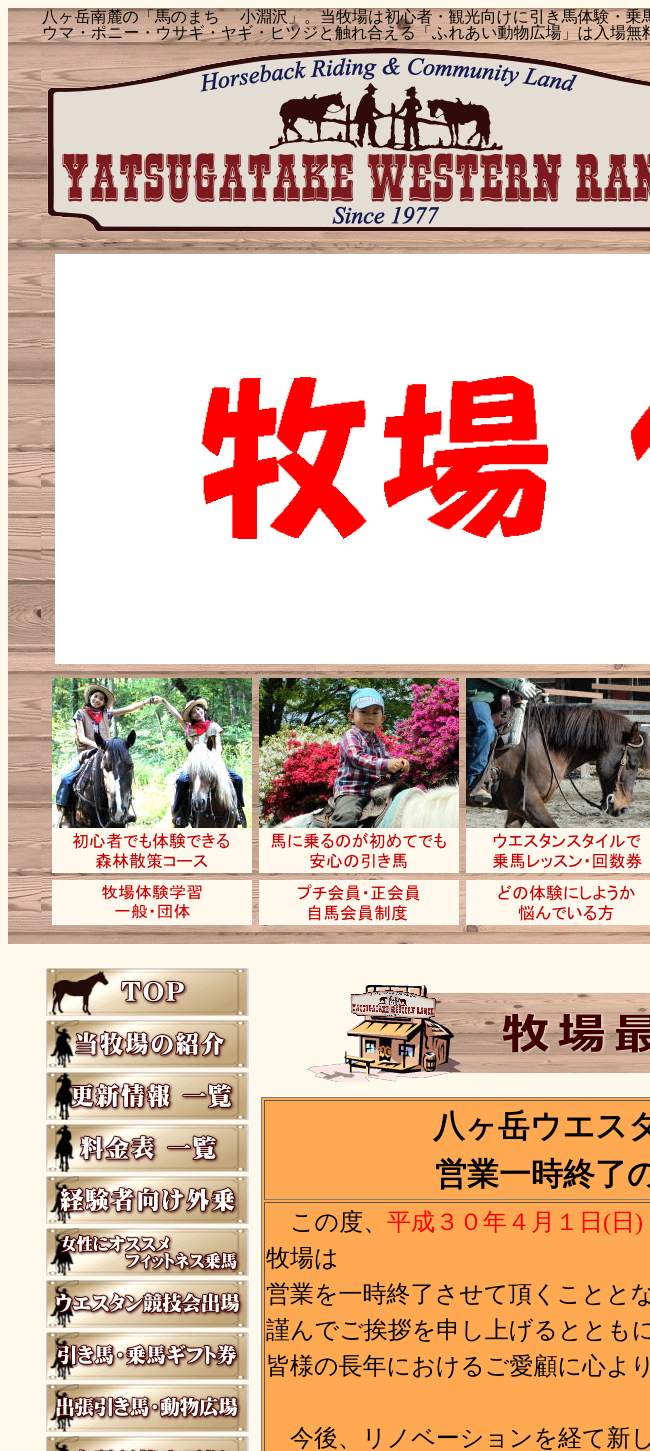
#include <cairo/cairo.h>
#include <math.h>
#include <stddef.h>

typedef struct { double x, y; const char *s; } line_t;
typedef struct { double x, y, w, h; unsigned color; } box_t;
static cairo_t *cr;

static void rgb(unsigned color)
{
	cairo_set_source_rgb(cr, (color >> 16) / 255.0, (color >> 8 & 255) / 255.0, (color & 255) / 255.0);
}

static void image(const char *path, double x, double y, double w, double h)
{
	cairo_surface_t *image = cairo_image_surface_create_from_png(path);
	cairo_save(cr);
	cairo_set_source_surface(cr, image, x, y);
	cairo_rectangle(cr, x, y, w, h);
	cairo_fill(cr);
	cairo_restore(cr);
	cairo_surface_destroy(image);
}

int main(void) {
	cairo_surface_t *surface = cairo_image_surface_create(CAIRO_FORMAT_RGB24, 650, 1451);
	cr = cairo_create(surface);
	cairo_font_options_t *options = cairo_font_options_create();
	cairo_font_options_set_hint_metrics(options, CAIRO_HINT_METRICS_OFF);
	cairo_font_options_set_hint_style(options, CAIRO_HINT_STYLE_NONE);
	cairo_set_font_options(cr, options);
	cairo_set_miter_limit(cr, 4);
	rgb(0xfff9ec);
	cairo_paint(cr);
	image("img/1.png", 8, 8, 33, 34);
	image("img/2.png", 41, 8, 609, 34);
	image("img/3.png", 8, 42, 33, 205);
	image("img/4.png", 41, 42, 609, 205);
	image("img/5.png", 47, 48, 603, 184);
	image("img/6.png", 8, 247, 33, 424);
	image("img/7.png", 41, 247, 609, 424);
	image("img/8.png", 55, 254, 595, 410);
	image("img/9.png", 8, 671, 33, 261);
	image("img/10.png", 41, 671, 609, 261);
	image("img/11.png", 52, 678, 200, 150);
	image("img/12.png", 52, 828, 200, 45);
	image("img/13.png", 259, 678, 200, 150);
	image("img/14.png", 259, 828, 200, 45);
	image("img/15.png", 466, 678, 184, 150);
	image("img/16.png", 466, 828, 184, 45);
	image("img/17.png", 52, 880, 200, 45);
	image("img/18.png", 259, 880, 200, 45);
	image("img/19.png", 466, 880, 184, 45);
	image("img/20.png", 8, 932, 33, 12);
	image("img/21.png", 41, 932, 609, 12);
	image("img/22.png", 46, 968, 204, 48);
	image("img/23.png", 46, 1020, 204, 48);
	image("img/24.png", 46, 1072, 204, 48);
	image("img/25.png", 46, 1124, 204, 48);
	image("img/26.png", 46, 1176, 204, 48);
	image("img/27.png", 46, 1228, 204, 48);
	image("img/28.png", 46, 1280, 204, 48);
	image("img/29.png", 46, 1332, 204, 48);
	image("img/30.png", 46, 1384, 204, 48);
	image("img/31.png", 46, 1436, 204, 15);
	image("img/32.png", 307, 985, 343, 97);
	{
		static const box_t items[] = {
			{262, 1098, 388, 353, 0xffa953},
			{261, 1097, 389, 1, 0x808080},
			{261, 1097, 1, 354, 0x808080},
			{264, 1100, 386, 1, 0x555555},
			{264, 1199, 386, 1, 0x808080},
			{264, 1100, 1, 100, 0x555555},
			{264, 1202, 386, 1, 0x555555},
			{264, 1202, 1, 249, 0x555555},
		};
		for (size_t i = 0; i < sizeof items / sizeof *items; i++) {
			rgb(items[i].color);
			cairo_rectangle(cr, items[i].x, items[i].y, items[i].w, items[i].h);
			cairo_fill(cr);
		}
	}
	cairo_select_font_face(cr, "WenQuanYi Zen Hei Medium", CAIRO_FONT_SLANT_NORMAL, CAIRO_FONT_WEIGHT_NORMAL);
	cairo_set_font_size(cr, 16);
	rgb(0x000000);
	{
		static const line_t items[] = {
			{42, 22, "八ヶ岳南麓の「馬のまち"},
			{240, 22, "小淵沢」。当牧場は初心者・観光向けに引き馬体験・乗馬"},
			{42, 38, "ウマ・ポニー・ウサギ・ヤギ・ヒツジと触れ合える「ふれあい動物広場」は入場無料"},
		};
		for (size_t i = 0; i < sizeof items / sizeof *items; i++) {
			cairo_move_to(cr, items[i].x, items[i].y);
			cairo_show_text(cr, items[i].s);
		}
	}
	cairo_select_font_face(cr, "WenQuanYi Zen Hei", CAIRO_FONT_SLANT_NORMAL, CAIRO_FONT_WEIGHT_BOLD);
	cairo_set_font_size(cr, 32);
	cairo_move_to(cr, 433, 1137);
	cairo_show_text(cr, "八ヶ岳ウエスタ");
	cairo_move_to(cr, 435, 1185);
	cairo_show_text(cr, "営業一時終了の");
	cairo_select_font_face(cr, "WenQuanYi Zen Hei Medium", CAIRO_FONT_SLANT_NORMAL, CAIRO_FONT_WEIGHT_NORMAL);
	cairo_set_font_size(cr, 24);
	cairo_move_to(cr, 290, 1230);
	cairo_show_text(cr, "この度、");
	rgb(0xff0000);
	cairo_move_to(cr, 387, 1230);
	cairo_show_text(cr, "平成３０年４月１日");
	cairo_select_font_face(cr, "Liberation Serif", CAIRO_FONT_SLANT_NORMAL, CAIRO_FONT_WEIGHT_NORMAL);
	cairo_move_to(cr, 603, 1230);
	cairo_show_text(cr, "(");
	cairo_select_font_face(cr, "WenQuanYi Zen Hei Medium", CAIRO_FONT_SLANT_NORMAL, CAIRO_FONT_WEIGHT_NORMAL);
	cairo_move_to(cr, 611, 1230);
	cairo_show_text(cr, "日");
	cairo_select_font_face(cr, "Liberation Serif", CAIRO_FONT_SLANT_NORMAL, CAIRO_FONT_WEIGHT_NORMAL);
	cairo_move_to(cr, 635, 1230);
	cairo_show_text(cr, ")");
	cairo_select_font_face(cr, "WenQuanYi Zen Hei Medium", CAIRO_FONT_SLANT_NORMAL, CAIRO_FONT_WEIGHT_NORMAL);
	rgb(0x000000);
	{
		static const line_t items[] = {
			{266, 1266, "牧場は"},
			{266, 1302, "営業を一時終了させて頂くこととな"},
			{266, 1338, "謹んでご挨拶を申し上げるとともに"},
			{266, 1374, "皆様の長年におけるご愛顧に心より"},
			{290, 1446, "今後、リノベーションを経て新し"},
		};
		for (size_t i = 0; i < sizeof items / sizeof *items; i++) {
			cairo_move_to(cr, items[i].x, items[i].y);
			cairo_show_text(cr, items[i].s);
		}
	}
	cairo_surface_write_to_png(surface, "page.png");
	cairo_font_options_destroy(options);
	cairo_destroy(cr);
	cairo_surface_destroy(surface);
	return 0;
}
